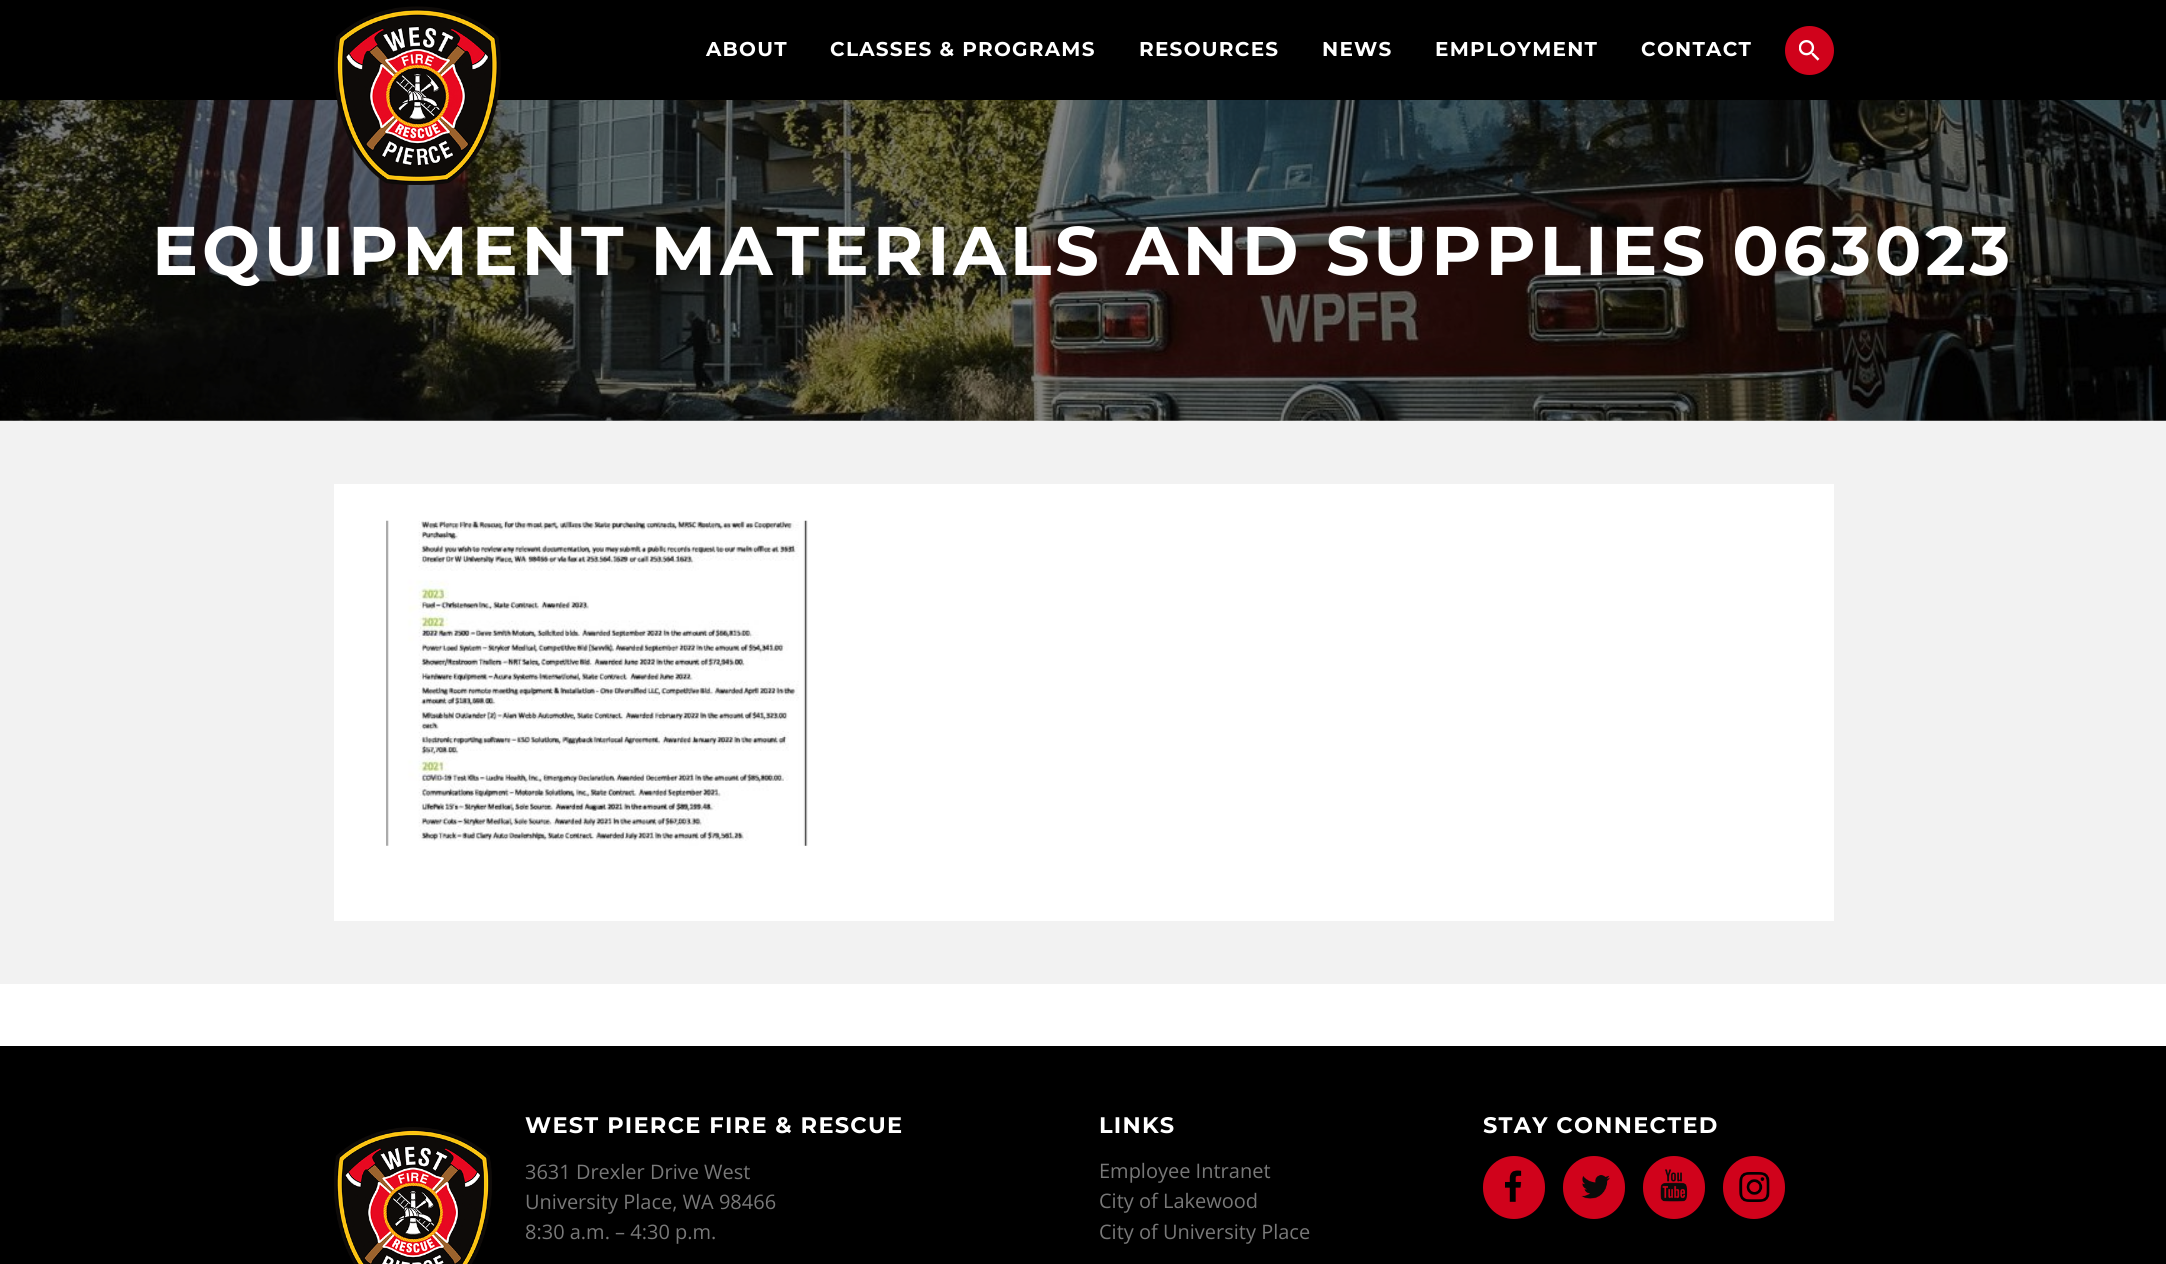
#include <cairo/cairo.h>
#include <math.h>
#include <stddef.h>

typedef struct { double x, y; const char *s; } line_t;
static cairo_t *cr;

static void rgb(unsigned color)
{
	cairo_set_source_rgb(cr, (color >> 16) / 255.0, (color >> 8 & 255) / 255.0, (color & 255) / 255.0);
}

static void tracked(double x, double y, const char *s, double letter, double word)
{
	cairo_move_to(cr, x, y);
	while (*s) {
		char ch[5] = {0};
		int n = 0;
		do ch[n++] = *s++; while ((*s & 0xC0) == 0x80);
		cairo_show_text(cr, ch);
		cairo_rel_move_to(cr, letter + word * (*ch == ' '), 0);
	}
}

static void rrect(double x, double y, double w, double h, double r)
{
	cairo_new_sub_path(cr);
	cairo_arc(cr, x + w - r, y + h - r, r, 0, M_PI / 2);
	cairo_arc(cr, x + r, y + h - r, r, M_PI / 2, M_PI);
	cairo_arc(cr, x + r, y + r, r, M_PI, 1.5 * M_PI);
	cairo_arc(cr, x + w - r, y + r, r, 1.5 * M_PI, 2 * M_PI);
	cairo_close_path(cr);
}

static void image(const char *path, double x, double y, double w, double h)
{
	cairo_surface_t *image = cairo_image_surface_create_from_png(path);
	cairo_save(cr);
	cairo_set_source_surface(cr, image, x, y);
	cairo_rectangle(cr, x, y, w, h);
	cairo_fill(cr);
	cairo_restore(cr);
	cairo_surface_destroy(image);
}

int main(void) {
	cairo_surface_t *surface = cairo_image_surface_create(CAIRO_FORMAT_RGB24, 2166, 1264);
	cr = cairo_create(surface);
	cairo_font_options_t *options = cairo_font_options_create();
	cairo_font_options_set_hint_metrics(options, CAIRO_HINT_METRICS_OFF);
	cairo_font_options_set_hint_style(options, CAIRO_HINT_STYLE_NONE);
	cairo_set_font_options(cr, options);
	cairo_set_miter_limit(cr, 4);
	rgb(0xffffff);
	cairo_paint(cr);
	rgb(0x000000);
	cairo_rectangle(cr, 0, 0, 2166, 100);
	cairo_fill(cr);
	rgb(0xf2f2f2);
	cairo_rectangle(cr, 0, 420, 2166, 564);
	cairo_fill(cr);
	image("img/3.png", 0, 100, 2166, 321);
	image("img/1.png", 334, 6, 167, 179);
	rgb(0xd0021b);
	cairo_arc(cr, 1809.5, 50.5, 24.5, 0, 2 * M_PI);
	cairo_fill(cr);
	image("img/2.png", 1799, 40, 21, 21);
	rgb(0xffffff);
	cairo_rectangle(cr, 334, 484, 1500, 437);
	cairo_fill(cr);
	image("img/4.png", 386, 520, 422, 326);
	rgb(0x000000);
	cairo_rectangle(cr, 0, 1046, 2166, 218);
	cairo_fill(cr);
	image("img/5.png", 334, 1127, 158, 137);
	rgb(0xd0021b);
	rrect(1483, 1156, 62, 63, 31);
	cairo_fill(cr);
	image("img/6.png", 1505, 1170, 17, 32);
	rrect(1563, 1156, 62, 63, 31);
	cairo_fill(cr);
	image("img/7.png", 1581, 1175, 29, 24);
	rrect(1643, 1156, 62, 63, 31);
	cairo_fill(cr);
	image("img/8.png", 1660, 1169, 28, 33);
	rrect(1723, 1156, 62, 63, 31);
	cairo_fill(cr);
	image("img/9.png", 1739, 1172, 31, 30);
	cairo_select_font_face(cr, "Montserrat Thin", CAIRO_FONT_SLANT_NORMAL, CAIRO_FONT_WEIGHT_NORMAL);
	cairo_set_font_size(cr, 20);
	rgb(0xffffff);
	{
		static const line_t items[] = {
			{706, 56, "ABOUT"},
			{830, 56, "CLASSES & PROGRAMS"},
			{1139, 56, "RESOURCES"},
			{1322, 56, "NEWS"},
			{1435, 56, "EMPLOYMENT"},
			{1641, 56, "CONTACT"},
		};
		for (size_t i = 0; i < sizeof items / sizeof *items; i++) {
			tracked(items[i].x, items[i].y, items[i].s, 1.25, 0);
		}
	}
	cairo_set_font_size(cr, 68.75);
	tracked(152, 275, "EQUIPMENT MATERIALS AND SUPPLIES 063023", 3.8, 0);
	cairo_set_font_size(cr, 22.5);
	tracked(525, 1133, "WEST PIERCE FIRE & RESCUE", 1.25, 0);
	cairo_select_font_face(cr, "Open Sans", CAIRO_FONT_SLANT_NORMAL, CAIRO_FONT_WEIGHT_NORMAL);
	cairo_set_font_size(cr, 20);
	rgb(0x787878);
	{
		static const line_t items[] = {
			{525, 1179, "3631 Drexler Drive West"},
			{525, 1209, "University Place, WA 98466"},
			{525, 1239, "8:30 a.m. – 4:30 p.m."},
		};
		for (size_t i = 0; i < sizeof items / sizeof *items; i++) {
			cairo_move_to(cr, items[i].x, items[i].y);
			cairo_show_text(cr, items[i].s);
		}
	}
	cairo_select_font_face(cr, "Montserrat Thin", CAIRO_FONT_SLANT_NORMAL, CAIRO_FONT_WEIGHT_NORMAL);
	cairo_set_font_size(cr, 22.5);
	rgb(0xffffff);
	tracked(1099, 1133, "LINKS", 1.25, 0);
	cairo_select_font_face(cr, "Open Sans", CAIRO_FONT_SLANT_NORMAL, CAIRO_FONT_WEIGHT_NORMAL);
	cairo_set_font_size(cr, 20);
	rgb(0x787878);
	{
		static const line_t items[] = {
			{1099, 1178, "Employee Intranet"},
			{1099, 1208, "City of Lakewood"},
			{1099, 1239, "City of University Place"},
		};
		for (size_t i = 0; i < sizeof items / sizeof *items; i++) {
			cairo_move_to(cr, items[i].x, items[i].y);
			cairo_show_text(cr, items[i].s);
		}
	}
	cairo_select_font_face(cr, "Montserrat Thin", CAIRO_FONT_SLANT_NORMAL, CAIRO_FONT_WEIGHT_NORMAL);
	cairo_set_font_size(cr, 22.5);
	rgb(0xffffff);
	tracked(1483, 1133, "STAY CONNECTED", 1.25, 0);
	cairo_surface_write_to_png(surface, "page.png");
	cairo_font_options_destroy(options);
	cairo_destroy(cr);
	cairo_surface_destroy(surface);
	return 0;
}
